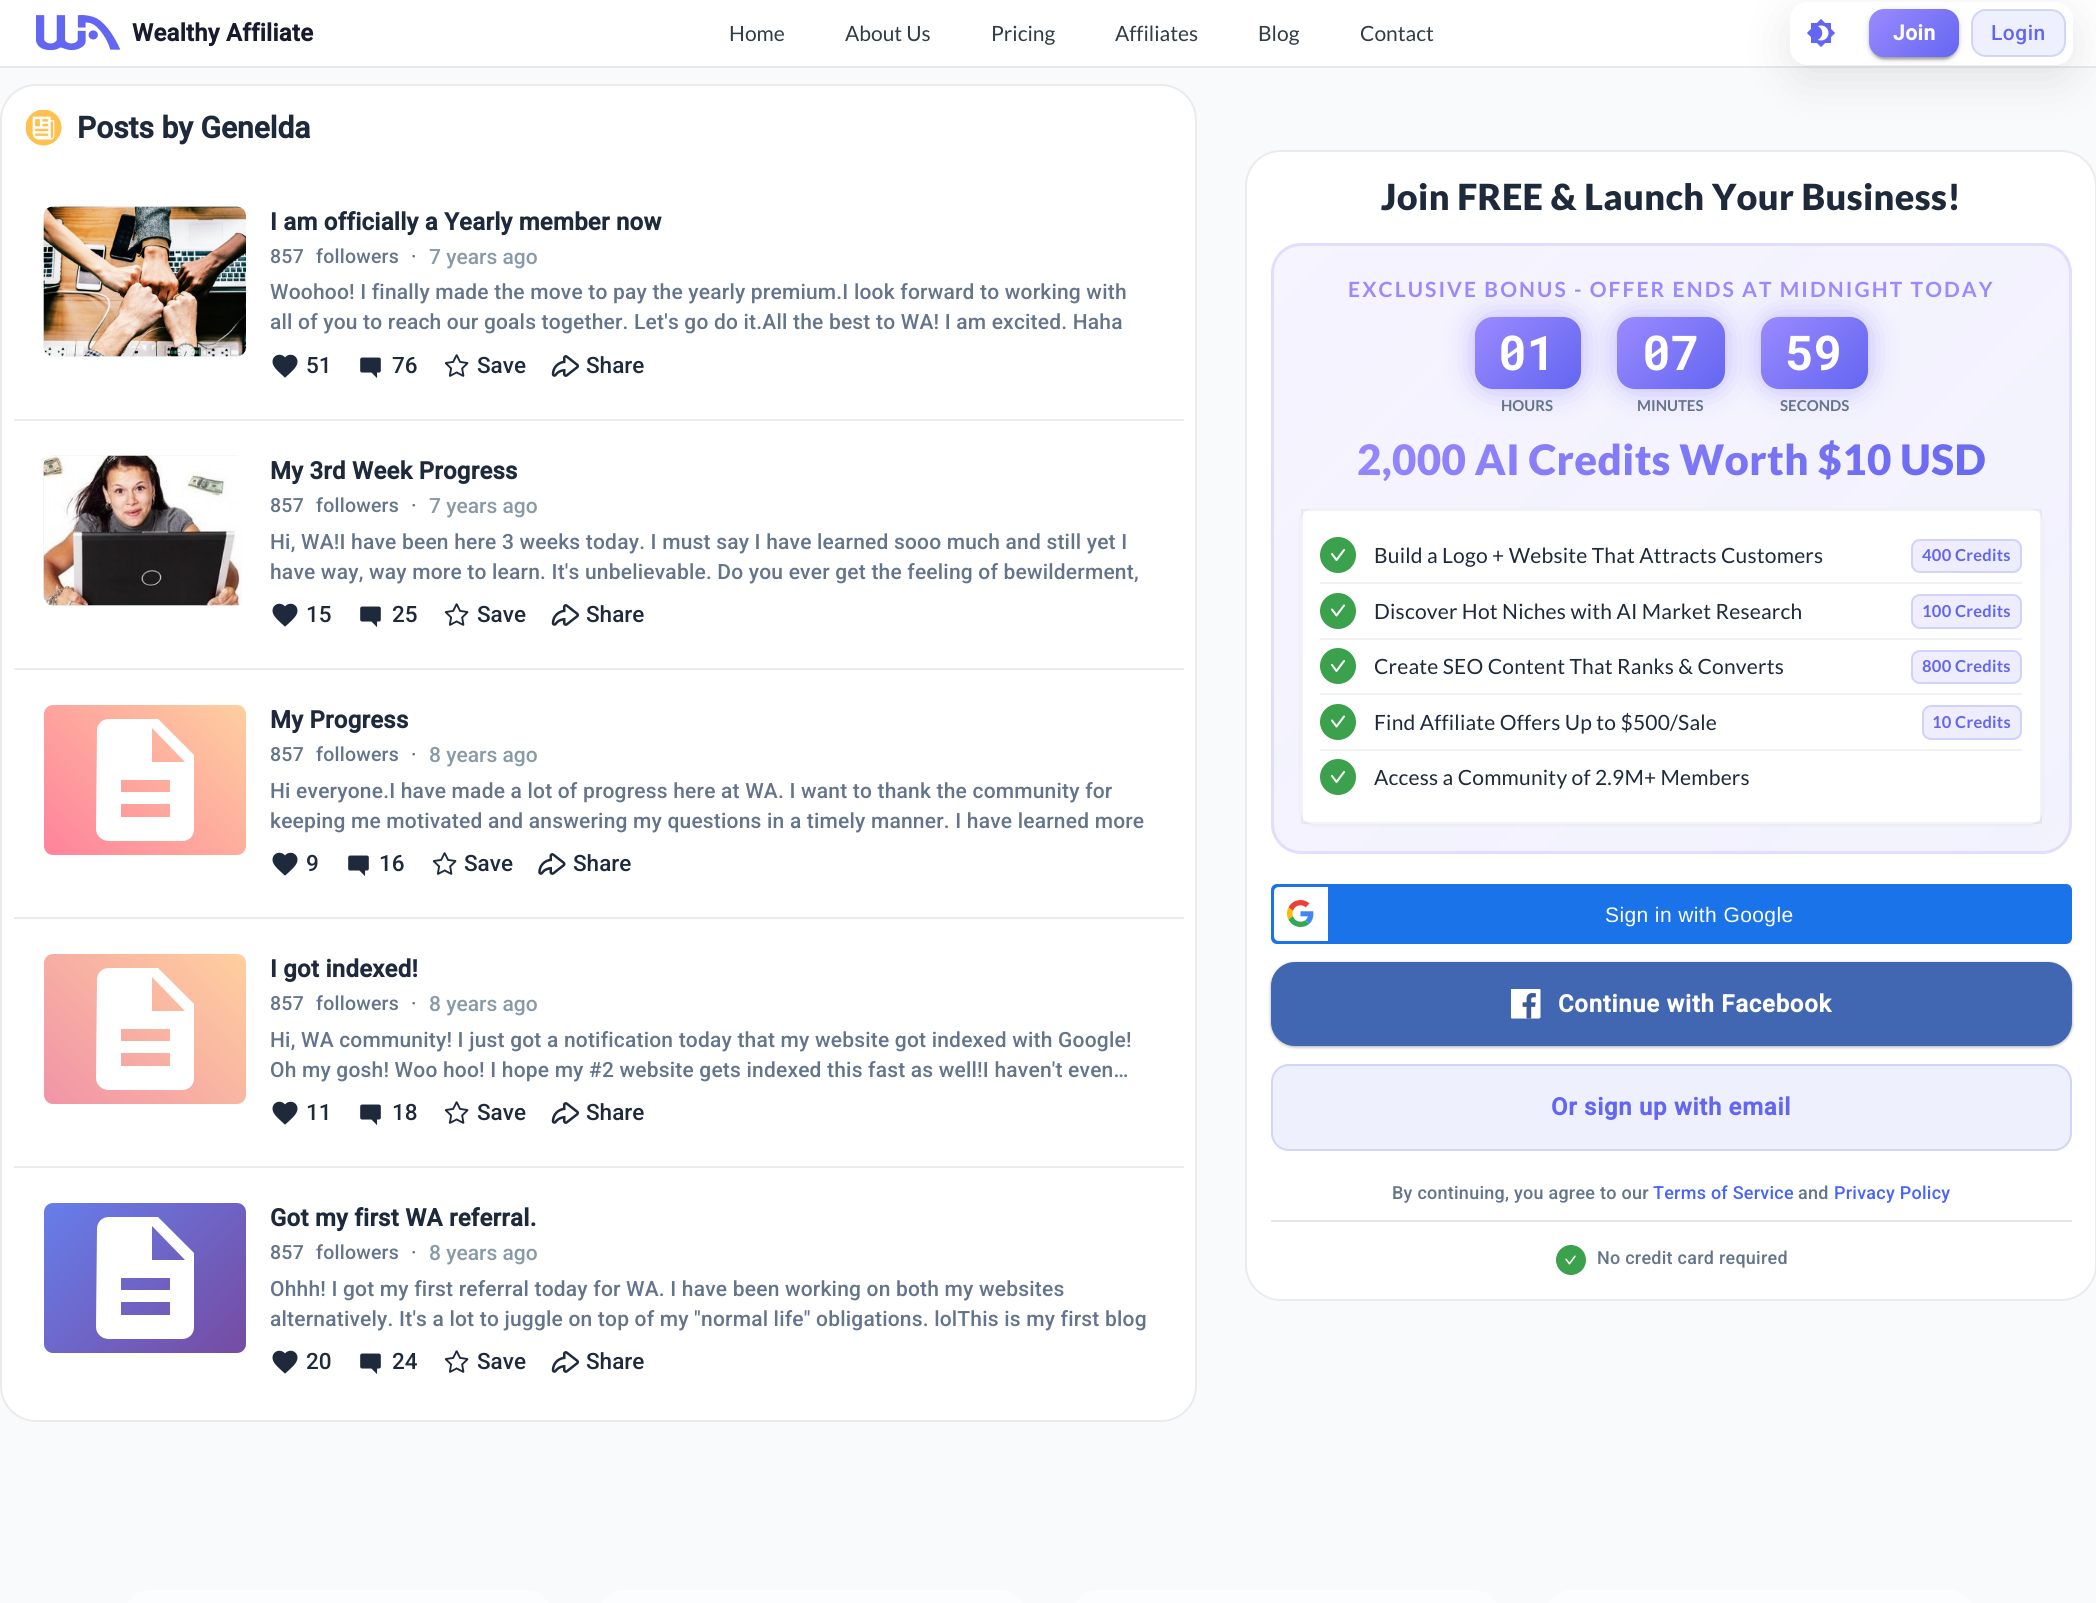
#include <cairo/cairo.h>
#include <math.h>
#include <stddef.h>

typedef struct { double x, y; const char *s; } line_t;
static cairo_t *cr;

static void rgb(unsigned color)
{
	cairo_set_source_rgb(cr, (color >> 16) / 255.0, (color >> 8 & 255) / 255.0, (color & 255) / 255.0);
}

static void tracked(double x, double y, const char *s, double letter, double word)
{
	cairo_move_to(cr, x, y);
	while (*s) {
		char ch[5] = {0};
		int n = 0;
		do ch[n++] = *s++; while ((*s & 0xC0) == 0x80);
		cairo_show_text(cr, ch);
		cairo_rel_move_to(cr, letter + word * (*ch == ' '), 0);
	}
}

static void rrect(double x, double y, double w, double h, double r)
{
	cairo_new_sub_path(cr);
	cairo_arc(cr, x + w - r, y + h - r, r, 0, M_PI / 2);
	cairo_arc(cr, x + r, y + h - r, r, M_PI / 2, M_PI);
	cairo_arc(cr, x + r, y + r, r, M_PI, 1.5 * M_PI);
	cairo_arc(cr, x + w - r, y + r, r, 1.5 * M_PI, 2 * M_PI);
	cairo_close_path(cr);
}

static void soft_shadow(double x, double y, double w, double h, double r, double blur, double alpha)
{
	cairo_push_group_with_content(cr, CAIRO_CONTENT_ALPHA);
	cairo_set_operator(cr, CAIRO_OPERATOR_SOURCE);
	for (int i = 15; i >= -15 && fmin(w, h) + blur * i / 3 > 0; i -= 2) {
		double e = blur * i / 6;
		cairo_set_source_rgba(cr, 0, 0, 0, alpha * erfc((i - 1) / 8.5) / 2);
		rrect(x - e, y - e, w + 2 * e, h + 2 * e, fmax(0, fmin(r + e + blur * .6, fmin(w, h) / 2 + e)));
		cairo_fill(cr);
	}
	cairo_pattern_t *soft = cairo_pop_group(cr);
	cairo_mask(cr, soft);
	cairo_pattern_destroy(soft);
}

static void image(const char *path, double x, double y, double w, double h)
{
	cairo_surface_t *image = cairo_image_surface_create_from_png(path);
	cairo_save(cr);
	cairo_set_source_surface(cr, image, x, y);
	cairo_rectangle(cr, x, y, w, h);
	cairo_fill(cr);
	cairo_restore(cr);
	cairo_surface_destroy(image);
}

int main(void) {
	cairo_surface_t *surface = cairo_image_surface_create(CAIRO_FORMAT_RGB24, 2096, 1603);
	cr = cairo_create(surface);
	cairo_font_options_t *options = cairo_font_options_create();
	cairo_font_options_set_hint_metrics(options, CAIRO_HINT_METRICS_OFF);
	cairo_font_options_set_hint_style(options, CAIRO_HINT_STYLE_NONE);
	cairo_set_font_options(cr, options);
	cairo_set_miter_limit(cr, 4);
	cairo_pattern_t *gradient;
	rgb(0xf8fafc);
	cairo_paint(cr);
	rgb(0xffffff);
	cairo_rectangle(cr, 0, 0, 2096, 66);
	cairo_fill(cr);
	rgb(0xeaeaeb);
	cairo_rectangle(cr, 0, 66, 2096, 2);
	cairo_fill(cr);
	image("img/1.png", 36, 15, 84, 36);
	cairo_save(cr);
	cairo_set_fill_rule(cr, CAIRO_FILL_RULE_EVEN_ODD);
	cairo_new_path(cr);
	cairo_move_to(cr, 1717, 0);
	cairo_line_to(cr, 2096, 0);
	cairo_line_to(cr, 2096, 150);
	cairo_line_to(cr, 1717, 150);
	cairo_close_path(cr);
	cairo_move_to(cr, 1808, 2);
	cairo_line_to(cr, 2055, 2);
	cairo_curve_to(cr, 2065, 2, 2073, 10, 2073, 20);
	cairo_line_to(cr, 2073, 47);
	cairo_curve_to(cr, 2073, 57, 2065, 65, 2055, 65);
	cairo_line_to(cr, 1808, 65);
	cairo_curve_to(cr, 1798, 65, 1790, 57, 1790, 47);
	cairo_line_to(cr, 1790, 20);
	cairo_curve_to(cr, 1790, 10, 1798, 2, 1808, 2);
	cairo_close_path(cr);
	cairo_clip(cr);
	rgb(0x000000);
	soft_shadow(1790, 14, 283, 63, 18, 24, 0.1);
	cairo_restore(cr);
	cairo_set_source_rgba(cr, 1, 1, 1, 0.95);
	rrect(1790, 2, 283, 63, 18);
	cairo_fill(cr);
	image("img/2.png", 1807, 19, 28, 28);
	rgb(0x000000);
	soft_shadow(1869, 11, 90, 48, 15, 4, 0.12);
	soft_shadow(1869, 12, 90, 48, 15, 1.5, 0.14);
	soft_shadow(1872, 17, 84, 42, 12, 1, 0.2);
	gradient = cairo_pattern_create_linear(1880, -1.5, 1949, 68);
	cairo_pattern_add_color_stop_rgba(gradient, 0, 0.608, 0.541, 1, 1);
	cairo_pattern_add_color_stop_rgba(gradient, 1, 0.388, 0.4, 0.945, 1);
	cairo_set_source(cr, gradient);
	cairo_pattern_destroy(gradient);
	rrect(1869, 9, 90, 48, 15);
	cairo_fill(cr);
	rgb(0xeff0fe);
	rrect(1971, 9, 95, 48, 15);
	cairo_fill(cr);
	rrect(1972, 10, 93, 46, 14);
	cairo_set_source_rgba(cr, 0.388, 0.4, 0.945, 0.2);
	cairo_stroke(cr);
	rgb(0xffffff);
	rrect(0, 84, 1197, 1338, 36);
	cairo_fill(cr);
	rrect(1, 85, 1195, 1336, 35);
	cairo_set_source_rgba(cr, 0, 0, 0, 0.08);
	cairo_stroke(cr);
	image("img/3.png", 26, 110, 36, 36);
	image("img/4.png", 43, 206, 203, 151);
	image("img/5.png", 272, 354, 26, 24);
	image("img/6.png", 360, 357, 21, 21);
	image("img/7.png", 444, 354, 25, 23);
	image("img/8.png", 551, 355, 28, 22);
	rgb(0xebebeb);
	cairo_rectangle(cr, 14, 419, 1170, 2);
	cairo_fill(cr);
	image("img/9.png", 43, 455, 199, 151);
	image("img/5.png", 272, 603, 26, 24);
	image("img/6.png", 360, 606, 21, 21);
	image("img/7.png", 444, 603, 25, 23);
	image("img/8.png", 551, 604, 28, 22);
	cairo_rectangle(cr, 14, 668, 1170, 2);
	cairo_fill(cr);
	gradient = cairo_pattern_create_linear(233, 692, 57, 868);
	cairo_pattern_add_color_stop_rgba(gradient, 0, 0.996, 0.812, 0.624, 1);
	cairo_pattern_add_color_stop_rgba(gradient, 1, 1, 0.51, 0.612, 1);
	cairo_set_source(cr, gradient);
	cairo_pattern_destroy(gradient);
	rrect(44, 705, 202, 150, 9);
	cairo_fill(cr);
	rgb(0xffffff);
	cairo_new_path(cr);
	cairo_move_to(cr, 158, 719);
	cairo_line_to(cr, 109, 719);
	cairo_curve_to(cr, 102, 719, 97, 724, 97, 731);
	cairo_line_to(cr, 96, 829);
	cairo_curve_to(cr, 96, 836, 102, 841, 109, 841);
	cairo_line_to(cr, 182, 841);
	cairo_curve_to(cr, 189, 841, 194, 836, 194, 829);
	cairo_line_to(cr, 194, 755);
	cairo_close_path(cr);
	cairo_move_to(cr, 170, 817);
	cairo_line_to(cr, 121, 817);
	cairo_line_to(cr, 121, 804);
	cairo_line_to(cr, 170, 804);
	cairo_close_path(cr);
	cairo_move_to(cr, 170, 792);
	cairo_line_to(cr, 121, 792);
	cairo_line_to(cr, 121, 780);
	cairo_line_to(cr, 170, 780);
	cairo_close_path(cr);
	cairo_move_to(cr, 152, 762);
	cairo_line_to(cr, 152, 728);
	cairo_line_to(cr, 185, 762);
	cairo_close_path(cr);
	cairo_fill(cr);
	image("img/5.png", 272, 852, 26, 24);
	image("img/6.png", 348, 855, 21, 21);
	image("img/7.png", 432, 852, 25, 23);
	image("img/10.png", 538, 853, 28, 22);
	rgb(0xebebeb);
	cairo_rectangle(cr, 14, 917, 1170, 2);
	cairo_fill(cr);
	gradient = cairo_pattern_create_linear(233, 941, 57, 1117);
	cairo_pattern_add_color_stop_rgba(gradient, 0, 1, 0.812, 0.62, 1);
	cairo_pattern_add_color_stop_rgba(gradient, 1, 0.945, 0.58, 0.655, 1);
	cairo_set_source(cr, gradient);
	cairo_pattern_destroy(gradient);
	rrect(44, 954, 202, 150, 9);
	cairo_fill(cr);
	rgb(0xffffff);
	cairo_new_path(cr);
	cairo_move_to(cr, 158, 968);
	cairo_line_to(cr, 109, 968);
	cairo_curve_to(cr, 102, 968, 97, 973, 97, 980);
	cairo_line_to(cr, 96, 1078);
	cairo_curve_to(cr, 96, 1085, 102, 1090, 109, 1090);
	cairo_line_to(cr, 182, 1090);
	cairo_curve_to(cr, 189, 1090, 194, 1085, 194, 1078);
	cairo_line_to(cr, 194, 1004);
	cairo_close_path(cr);
	cairo_move_to(cr, 170, 1066);
	cairo_line_to(cr, 121, 1066);
	cairo_line_to(cr, 121, 1053);
	cairo_line_to(cr, 170, 1053);
	cairo_close_path(cr);
	cairo_move_to(cr, 170, 1041);
	cairo_line_to(cr, 121, 1041);
	cairo_line_to(cr, 121, 1029);
	cairo_line_to(cr, 170, 1029);
	cairo_close_path(cr);
	cairo_move_to(cr, 152, 1011);
	cairo_line_to(cr, 152, 977);
	cairo_line_to(cr, 185, 1011);
	cairo_close_path(cr);
	cairo_fill(cr);
	image("img/5.png", 272, 1101, 26, 24);
	image("img/6.png", 360, 1104, 21, 21);
	image("img/7.png", 444, 1101, 25, 23);
	image("img/8.png", 551, 1102, 28, 22);
	rgb(0xebebeb);
	cairo_rectangle(cr, 14, 1166, 1170, 2);
	cairo_fill(cr);
	gradient = cairo_pattern_create_linear(57, 1190, 233, 1366);
	cairo_pattern_add_color_stop_rgba(gradient, 0, 0.4, 0.494, 0.918, 1);
	cairo_pattern_add_color_stop_rgba(gradient, 1, 0.463, 0.294, 0.635, 1);
	cairo_set_source(cr, gradient);
	cairo_pattern_destroy(gradient);
	rrect(44, 1203, 202, 150, 9);
	cairo_fill(cr);
	rgb(0xffffff);
	cairo_new_path(cr);
	cairo_move_to(cr, 158, 1217);
	cairo_line_to(cr, 109, 1217);
	cairo_curve_to(cr, 102, 1217, 97, 1222, 97, 1229);
	cairo_line_to(cr, 96, 1327);
	cairo_curve_to(cr, 96, 1334, 102, 1339, 109, 1339);
	cairo_line_to(cr, 182, 1339);
	cairo_curve_to(cr, 189, 1339, 194, 1334, 194, 1327);
	cairo_line_to(cr, 194, 1253);
	cairo_close_path(cr);
	cairo_move_to(cr, 170, 1315);
	cairo_line_to(cr, 121, 1315);
	cairo_line_to(cr, 121, 1302);
	cairo_line_to(cr, 170, 1302);
	cairo_close_path(cr);
	cairo_move_to(cr, 170, 1290);
	cairo_line_to(cr, 121, 1290);
	cairo_line_to(cr, 121, 1278);
	cairo_line_to(cr, 170, 1278);
	cairo_close_path(cr);
	cairo_move_to(cr, 152, 1260);
	cairo_line_to(cr, 152, 1226);
	cairo_line_to(cr, 185, 1260);
	cairo_close_path(cr);
	cairo_fill(cr);
	image("img/5.png", 272, 1350, 26, 24);
	image("img/6.png", 360, 1353, 21, 21);
	image("img/7.png", 444, 1350, 25, 23);
	image("img/8.png", 551, 1351, 28, 22);
	rrect(1245, 150, 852, 1151, 36);
	cairo_fill(cr);
	rrect(1246, 151, 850, 1149, 35);
	cairo_set_source_rgba(cr, 0, 0, 0, 0.08);
	cairo_stroke(cr);
	cairo_save(cr);
	rrect(1271, 243, 801, 611, 30);
	cairo_clip(cr);
	gradient = cairo_pattern_create_linear(1321, -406, 2021, 294);
	cairo_pattern_add_color_stop_rgba(gradient, 0, 0.961, 0.953, 1, 1);
	cairo_pattern_add_color_stop_rgba(gradient, 1, 0.953, 0.953, 0.996, 1);
	cairo_set_source(cr, gradient);
	cairo_pattern_destroy(gradient);
	cairo_rectangle(cr, 1288, 243, 767, 3);
	cairo_fill(cr);
	gradient = cairo_pattern_create_linear(526, 198, 1226, 898);
	cairo_pattern_add_color_stop_rgba(gradient, 0, 0.961, 0.953, 1, 1);
	cairo_pattern_add_color_stop_rgba(gradient, 1, 0.953, 0.953, 0.996, 1);
	cairo_set_source(cr, gradient);
	cairo_pattern_destroy(gradient);
	cairo_rectangle(cr, 1271, 260, 3, 577);
	cairo_fill(cr);
	gradient = cairo_pattern_create_linear(1321, 198, 2021, 898);
	cairo_pattern_add_color_stop_rgba(gradient, 0, 0.608, 0.541, 1, 0.1);
	cairo_pattern_add_color_stop_rgba(gradient, 1, 0.388, 0.4, 0.945, 0.08);
	cairo_set_source(cr, gradient);
	cairo_pattern_destroy(gradient);
	cairo_rectangle(cr, 1274, 246, 795, 605);
	cairo_fill(cr);
	gradient = cairo_pattern_create_linear(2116, 198, 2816, 898);
	cairo_pattern_add_color_stop_rgba(gradient, 0, 0.608, 0.541, 1, 0.1);
	cairo_pattern_add_color_stop_rgba(gradient, 1, 0.388, 0.4, 0.945, 0.08);
	cairo_set_source(cr, gradient);
	cairo_pattern_destroy(gradient);
	cairo_rectangle(cr, 2069, 260, 3, 577);
	cairo_fill(cr);
	gradient = cairo_pattern_create_linear(1321, 803, 2021, 1503);
	cairo_pattern_add_color_stop_rgba(gradient, 0, 0.608, 0.541, 1, 0.1);
	cairo_pattern_add_color_stop_rgba(gradient, 1, 0.388, 0.4, 0.945, 0.08);
	cairo_set_source(cr, gradient);
	cairo_pattern_destroy(gradient);
	cairo_rectangle(cr, 1288, 851, 767, 3);
	cairo_fill(cr);
	cairo_restore(cr);
	rrect(1272.5, 244.5, 798, 608, 28.5);
	cairo_set_source_rgba(cr, 0.608, 0.541, 1, 0.2);
	cairo_set_line_width(cr, 3);
	cairo_stroke(cr);
	rgb(0x9b8aff);
	soft_shadow(1475, 317, 106, 72, 18, 15, 0.6);
	gradient = cairo_pattern_create_linear(1483, 308, 1572, 397);
	cairo_pattern_add_color_stop_rgba(gradient, 0, 0.608, 0.541, 1, 1);
	cairo_pattern_add_color_stop_rgba(gradient, 1, 0.388, 0.4, 0.945, 1);
	cairo_set_source(cr, gradient);
	cairo_pattern_destroy(gradient);
	rrect(1475, 317, 106, 72, 18);
	cairo_fill(cr);
	rgb(0x9b8aff);
	soft_shadow(1617, 317, 108, 72, 18, 15, 0.6);
	gradient = cairo_pattern_create_linear(1626, 308, 1716, 398);
	cairo_pattern_add_color_stop_rgba(gradient, 0, 0.608, 0.541, 1, 1);
	cairo_pattern_add_color_stop_rgba(gradient, 1, 0.388, 0.4, 0.945, 1);
	cairo_set_source(cr, gradient);
	cairo_pattern_destroy(gradient);
	rrect(1617, 317, 108, 72, 18);
	cairo_fill(cr);
	rgb(0x9b8aff);
	soft_shadow(1761, 317, 107, 72, 18, 15, 0.6);
	gradient = cairo_pattern_create_linear(1770, 308, 1859, 397);
	cairo_pattern_add_color_stop_rgba(gradient, 0, 0.608, 0.541, 1, 1);
	cairo_pattern_add_color_stop_rgba(gradient, 1, 0.388, 0.4, 0.945, 1);
	cairo_set_source(cr, gradient);
	cairo_pattern_destroy(gradient);
	rrect(1761, 317, 107, 72, 18);
	cairo_fill(cr);
	rgb(0x000000);
	soft_shadow(1301, 510, 741, 315, 12, 2, 0.05);
	rgb(0xffffff);
	rrect(1301, 509, 741, 315, 12);
	cairo_fill(cr);
	cairo_rectangle(cr, 1302, 510, 739, 313);
	cairo_set_source_rgba(cr, 0, 0, 0, 0.05);
	cairo_set_line_width(cr, 2);
	cairo_stroke(cr);
	rgb(0xf2f2f2);
	cairo_rectangle(cr, 1320, 582, 702, 2);
	cairo_fill(cr);
	rgb(0x3ca14c);
	cairo_arc(cr, 1338, 555, 18, 0, 2 * M_PI);
	cairo_fill(cr);
	image("img/11.png", 1331, 549, 14, 12);
	cairo_save(cr);
	rrect(1911, 539, 111, 34, 9);
	cairo_clip(cr);
	gradient = cairo_pattern_create_linear(1932, 489, 2001, 559);
	cairo_pattern_add_color_stop_rgba(gradient, 0, 0.941, 0.929, 1, 1);
	cairo_pattern_add_color_stop_rgba(gradient, 1, 0.925, 0.929, 0.992, 1);
	cairo_set_source(cr, gradient);
	cairo_pattern_destroy(gradient);
	cairo_rectangle(cr, 1913, 539, 108, 1);
	cairo_fill(cr);
	gradient = cairo_pattern_create_linear(1824, 521, 1893, 591);
	cairo_pattern_add_color_stop_rgba(gradient, 0, 0.941, 0.929, 1, 1);
	cairo_pattern_add_color_stop_rgba(gradient, 1, 0.925, 0.929, 0.992, 1);
	cairo_set_source(cr, gradient);
	cairo_pattern_destroy(gradient);
	cairo_rectangle(cr, 1911, 540, 2, 32);
	cairo_fill(cr);
	gradient = cairo_pattern_create_linear(1932, 521, 2001, 591);
	cairo_pattern_add_color_stop_rgba(gradient, 0, 0.941, 0.929, 1, 1);
	cairo_pattern_add_color_stop_rgba(gradient, 1, 0.925, 0.929, 0.992, 1);
	cairo_set_source(cr, gradient);
	cairo_pattern_destroy(gradient);
	cairo_rectangle(cr, 1913, 540, 108, 32);
	cairo_fill(cr);
	gradient = cairo_pattern_create_linear(2040, 521, 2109, 591);
	cairo_pattern_add_color_stop_rgba(gradient, 0, 0.941, 0.929, 1, 1);
	cairo_pattern_add_color_stop_rgba(gradient, 1, 0.925, 0.929, 0.992, 1);
	cairo_set_source(cr, gradient);
	cairo_pattern_destroy(gradient);
	cairo_rectangle(cr, 2021, 540, 1, 32);
	cairo_fill(cr);
	gradient = cairo_pattern_create_linear(1932, 552, 2001, 622);
	cairo_pattern_add_color_stop_rgba(gradient, 0, 0.941, 0.929, 1, 1);
	cairo_pattern_add_color_stop_rgba(gradient, 1, 0.925, 0.929, 0.992, 1);
	cairo_set_source(cr, gradient);
	cairo_pattern_destroy(gradient);
	cairo_rectangle(cr, 1913, 572, 108, 1);
	cairo_fill(cr);
	cairo_restore(cr);
	rrect(1912, 540, 109, 32, 8);
	cairo_set_source_rgba(cr, 0.388, 0.4, 0.945, 0.2);
	cairo_stroke(cr);
	rgb(0xf2f2f2);
	cairo_rectangle(cr, 1320, 638, 702, 2);
	cairo_fill(cr);
	rgb(0x3ca14c);
	cairo_arc(cr, 1338, 611, 18, 0, 2 * M_PI);
	cairo_fill(cr);
	image("img/12.png", 1331, 604, 14, 13);
	cairo_save(cr);
	rrect(1911, 594, 111, 35, 9);
	cairo_clip(cr);
	gradient = cairo_pattern_create_linear(1932, 545, 2001, 615);
	cairo_pattern_add_color_stop_rgba(gradient, 0, 0.941, 0.929, 1, 1);
	cairo_pattern_add_color_stop_rgba(gradient, 1, 0.925, 0.929, 0.992, 1);
	cairo_set_source(cr, gradient);
	cairo_pattern_destroy(gradient);
	cairo_rectangle(cr, 1913, 594, 108, 2);
	cairo_fill(cr);
	gradient = cairo_pattern_create_linear(1824, 576, 1893, 646);
	cairo_pattern_add_color_stop_rgba(gradient, 0, 0.941, 0.929, 1, 1);
	cairo_pattern_add_color_stop_rgba(gradient, 1, 0.925, 0.929, 0.992, 1);
	cairo_set_source(cr, gradient);
	cairo_pattern_destroy(gradient);
	cairo_rectangle(cr, 1911, 596, 2, 31);
	cairo_fill(cr);
	gradient = cairo_pattern_create_linear(1932, 576, 2001, 646);
	cairo_pattern_add_color_stop_rgba(gradient, 0, 0.941, 0.929, 1, 1);
	cairo_pattern_add_color_stop_rgba(gradient, 1, 0.925, 0.929, 0.992, 1);
	cairo_set_source(cr, gradient);
	cairo_pattern_destroy(gradient);
	cairo_rectangle(cr, 1913, 596, 108, 31);
	cairo_fill(cr);
	gradient = cairo_pattern_create_linear(2040, 576, 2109, 646);
	cairo_pattern_add_color_stop_rgba(gradient, 0, 0.941, 0.929, 1, 1);
	cairo_pattern_add_color_stop_rgba(gradient, 1, 0.925, 0.929, 0.992, 1);
	cairo_set_source(cr, gradient);
	cairo_pattern_destroy(gradient);
	cairo_rectangle(cr, 2021, 596, 1, 31);
	cairo_fill(cr);
	gradient = cairo_pattern_create_linear(1932, 608, 2001, 678);
	cairo_pattern_add_color_stop_rgba(gradient, 0, 0.941, 0.929, 1, 1);
	cairo_pattern_add_color_stop_rgba(gradient, 1, 0.925, 0.929, 0.992, 1);
	cairo_set_source(cr, gradient);
	cairo_pattern_destroy(gradient);
	cairo_rectangle(cr, 1913, 627, 108, 2);
	cairo_fill(cr);
	cairo_restore(cr);
	rrect(1912, 595, 109, 33, 8);
	cairo_set_source_rgba(cr, 0.388, 0.4, 0.945, 0.2);
	cairo_stroke(cr);
	rgb(0xf2f2f2);
	cairo_rectangle(cr, 1320, 693, 702, 2);
	cairo_fill(cr);
	rgb(0x3ca14c);
	cairo_arc(cr, 1338, 666, 18, 0, 2 * M_PI);
	cairo_fill(cr);
	image("img/11.png", 1331, 660, 14, 12);
	cairo_save(cr);
	rrect(1911, 650, 111, 34, 9);
	cairo_clip(cr);
	gradient = cairo_pattern_create_linear(1932, 600, 2001, 670);
	cairo_pattern_add_color_stop_rgba(gradient, 0, 0.941, 0.929, 1, 1);
	cairo_pattern_add_color_stop_rgba(gradient, 1, 0.925, 0.929, 0.992, 1);
	cairo_set_source(cr, gradient);
	cairo_pattern_destroy(gradient);
	cairo_rectangle(cr, 1913, 650, 108, 1);
	cairo_fill(cr);
	gradient = cairo_pattern_create_linear(1824, 632, 1893, 702);
	cairo_pattern_add_color_stop_rgba(gradient, 0, 0.941, 0.929, 1, 1);
	cairo_pattern_add_color_stop_rgba(gradient, 1, 0.925, 0.929, 0.992, 1);
	cairo_set_source(cr, gradient);
	cairo_pattern_destroy(gradient);
	cairo_rectangle(cr, 1911, 651, 2, 32);
	cairo_fill(cr);
	gradient = cairo_pattern_create_linear(1932, 632, 2001, 702);
	cairo_pattern_add_color_stop_rgba(gradient, 0, 0.941, 0.929, 1, 1);
	cairo_pattern_add_color_stop_rgba(gradient, 1, 0.925, 0.929, 0.992, 1);
	cairo_set_source(cr, gradient);
	cairo_pattern_destroy(gradient);
	cairo_rectangle(cr, 1913, 651, 108, 32);
	cairo_fill(cr);
	gradient = cairo_pattern_create_linear(2040, 632, 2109, 702);
	cairo_pattern_add_color_stop_rgba(gradient, 0, 0.941, 0.929, 1, 1);
	cairo_pattern_add_color_stop_rgba(gradient, 1, 0.925, 0.929, 0.992, 1);
	cairo_set_source(cr, gradient);
	cairo_pattern_destroy(gradient);
	cairo_rectangle(cr, 2021, 651, 1, 32);
	cairo_fill(cr);
	gradient = cairo_pattern_create_linear(1932, 663, 2001, 733);
	cairo_pattern_add_color_stop_rgba(gradient, 0, 0.941, 0.929, 1, 1);
	cairo_pattern_add_color_stop_rgba(gradient, 1, 0.925, 0.929, 0.992, 1);
	cairo_set_source(cr, gradient);
	cairo_pattern_destroy(gradient);
	cairo_rectangle(cr, 1913, 683, 108, 1);
	cairo_fill(cr);
	cairo_restore(cr);
	rrect(1912, 651, 109, 32, 8);
	cairo_set_source_rgba(cr, 0.388, 0.4, 0.945, 0.2);
	cairo_stroke(cr);
	rgb(0xf2f2f2);
	cairo_rectangle(cr, 1320, 749, 702, 2);
	cairo_fill(cr);
	rgb(0x3ca14c);
	cairo_arc(cr, 1338, 722, 18, 0, 2 * M_PI);
	cairo_fill(cr);
	image("img/12.png", 1331, 715, 14, 13);
	cairo_save(cr);
	rrect(1922, 705, 100, 35, 9);
	cairo_clip(cr);
	gradient = cairo_pattern_create_linear(1940, 659, 2004, 723);
	cairo_pattern_add_color_stop_rgba(gradient, 0, 0.941, 0.929, 1, 1);
	cairo_pattern_add_color_stop_rgba(gradient, 1, 0.925, 0.929, 0.992, 1);
	cairo_set_source(cr, gradient);
	cairo_pattern_destroy(gradient);
	cairo_rectangle(cr, 1923, 705, 98, 2);
	cairo_fill(cr);
	gradient = cairo_pattern_create_linear(1842, 690, 1907, 755);
	cairo_pattern_add_color_stop_rgba(gradient, 0, 0.941, 0.929, 1, 1);
	cairo_pattern_add_color_stop_rgba(gradient, 1, 0.925, 0.929, 0.992, 1);
	cairo_set_source(cr, gradient);
	cairo_pattern_destroy(gradient);
	cairo_rectangle(cr, 1922, 707, 1, 31);
	cairo_fill(cr);
	gradient = cairo_pattern_create_linear(1940, 690, 2004, 755);
	cairo_pattern_add_color_stop_rgba(gradient, 0, 0.941, 0.929, 1, 1);
	cairo_pattern_add_color_stop_rgba(gradient, 1, 0.925, 0.929, 0.992, 1);
	cairo_set_source(cr, gradient);
	cairo_pattern_destroy(gradient);
	cairo_rectangle(cr, 1923, 707, 98, 31);
	cairo_fill(cr);
	gradient = cairo_pattern_create_linear(2037, 690, 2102, 755);
	cairo_pattern_add_color_stop_rgba(gradient, 0, 0.941, 0.929, 1, 1);
	cairo_pattern_add_color_stop_rgba(gradient, 1, 0.925, 0.929, 0.992, 1);
	cairo_set_source(cr, gradient);
	cairo_pattern_destroy(gradient);
	cairo_rectangle(cr, 2021, 707, 1, 31);
	cairo_fill(cr);
	gradient = cairo_pattern_create_linear(1940, 722, 2004, 786);
	cairo_pattern_add_color_stop_rgba(gradient, 0, 0.941, 0.929, 1, 1);
	cairo_pattern_add_color_stop_rgba(gradient, 1, 0.925, 0.929, 0.992, 1);
	cairo_set_source(cr, gradient);
	cairo_pattern_destroy(gradient);
	cairo_rectangle(cr, 1923, 738, 98, 2);
	cairo_fill(cr);
	cairo_restore(cr);
	rrect(1923, 706, 98, 33, 8);
	cairo_set_source_rgba(cr, 0.388, 0.4, 0.945, 0.2);
	cairo_stroke(cr);
	rgb(0x3ca14c);
	cairo_arc(cr, 1338, 777, 18, 0, 2 * M_PI);
	cairo_fill(cr);
	image("img/11.png", 1331, 771, 14, 12);
	rgb(0x1a73e8);
	rrect(1271, 884, 801, 60, 6);
	cairo_fill(cr);
	rgb(0xffffff);
	cairo_new_path(cr);
	cairo_move_to(cr, 1279, 887);
	cairo_line_to(cr, 1328, 887);
	cairo_line_to(cr, 1328, 941);
	cairo_line_to(cr, 1279, 941);
	cairo_curve_to(cr, 1276, 941, 1274, 939, 1274, 936);
	cairo_line_to(cr, 1274, 892);
	cairo_curve_to(cr, 1274, 889, 1276, 887, 1279, 887);
	cairo_close_path(cr);
	cairo_fill(cr);
	image("img/13.png", 1287, 900, 27, 27);
	rgb(0x000000);
	soft_shadow(1271, 963, 801, 84, 24, 1.5, 0.24);
	soft_shadow(1271, 963, 801, 84, 24, 2, 0.12);
	rgb(0x4267b2);
	rrect(1271, 962, 801, 84, 24);
	cairo_fill(cr);
	image("img/14.png", 1511, 989, 30, 30);
	rgb(0xeff0fe);
	rrect(1271, 1064, 801, 87, 18);
	cairo_fill(cr);
	rrect(1272, 1065, 799, 85, 17);
	cairo_set_source_rgba(cr, 0.388, 0.4, 0.945, 0.2);
	cairo_stroke(cr);
	rgb(0xe6e6e6);
	cairo_rectangle(cr, 1271, 1220, 801, 2);
	cairo_fill(cr);
	rgb(0x3ca14c);
	cairo_arc(cr, 1571, 1260, 15, 0, 2 * M_PI);
	cairo_fill(cr);
	image("img/15.png", 1565, 1255, 11, 10);
	rgb(0xfcfdfe);
	rrect(125, 1590, 426, 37, 24);
	cairo_fill(cr);
	rrect(599, 1590, 426, 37, 24);
	cairo_fill(cr);
	rrect(1073, 1590, 426, 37, 24);
	cairo_fill(cr);
	rrect(1547, 1590, 426, 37, 24);
	cairo_fill(cr);
	cairo_select_font_face(cr, "Roboto", CAIRO_FONT_SLANT_NORMAL, CAIRO_FONT_WEIGHT_BOLD);
	cairo_set_font_size(cr, 24);
	rgb(0x1a1a2e);
	tracked(132, 41, "Wealthy Affiliate", 0.25, 0);
	cairo_select_font_face(cr, "Lato", CAIRO_FONT_SLANT_NORMAL, CAIRO_FONT_WEIGHT_NORMAL);
	cairo_set_font_size(cr, 21);
	rgb(0x313c44);
	{
		static const line_t items[] = {
			{729, 41, "Home"},
			{845, 41, "About Us"},
			{991, 41, "Pricing"},
			{1115, 41, "Affiliates"},
			{1258, 41, "Blog"},
			{1360, 41, "Contact"},
		};
		for (size_t i = 0; i < sizeof items / sizeof *items; i++) {
			cairo_move_to(cr, items[i].x, items[i].y);
			cairo_show_text(cr, items[i].s);
		}
	}
	cairo_select_font_face(cr, "Roboto", CAIRO_FONT_SLANT_NORMAL, CAIRO_FONT_WEIGHT_BOLD);
	rgb(0xffffff);
	tracked(1893, 40, "Join", 0.5, 0);
	cairo_select_font_face(cr, "Roboto Medium", CAIRO_FONT_SLANT_NORMAL, CAIRO_FONT_WEIGHT_NORMAL);
	rgb(0x6366f1);
	tracked(1991, 40, "Login", 0.5, 0);
	cairo_select_font_face(cr, "Roboto", CAIRO_FONT_SLANT_NORMAL, CAIRO_FONT_WEIGHT_BOLD);
	cairo_set_font_size(cr, 30);
	rgb(0x1e293b);
	cairo_move_to(cr, 77, 138);
	cairo_show_text(cr, "Posts by Genelda");
	cairo_set_font_size(cr, 24);
	tracked(270, 230, "I am officially a Yearly member now", 0.25, 0);
	cairo_select_font_face(cr, "Roboto Medium", CAIRO_FONT_SLANT_NORMAL, CAIRO_FONT_WEIGHT_NORMAL);
	cairo_set_font_size(cr, 19.5);
	rgb(0x64748b);
	{
		static const line_t items[] = {
			{270, 263, "857"},
			{316, 263, "followers"},
			{411, 263, "·"},
		};
		for (size_t i = 0; i < sizeof items / sizeof *items; i++) {
			tracked(items[i].x, items[i].y, items[i].s, 0.25, 0);
		}
	}
	cairo_set_font_size(cr, 21);
	rgb(0x889aa7);
	cairo_move_to(cr, 429, 264);
	cairo_show_text(cr, "7 years ago");
	rgb(0x64748b);
	tracked(270, 299, "Woohoo! I finally made the move to pay the yearly premium.I look forward to working with", 0.2, 0);
	tracked(270, 329, "all of you to reach our goals together. Let's go do it.All the best to WA! I am excited. Haha", 0.2, 0);
	cairo_set_font_size(cr, 22.5);
	rgb(0x1e293b);
	{
		static const line_t items[] = {
			{306, 373, "51"},
			{392, 373, "76"},
			{477, 373, "Save"},
			{586, 373, "Share"},
		};
		for (size_t i = 0; i < sizeof items / sizeof *items; i++) {
			cairo_move_to(cr, items[i].x, items[i].y);
			cairo_show_text(cr, items[i].s);
		}
	}
	cairo_select_font_face(cr, "Roboto", CAIRO_FONT_SLANT_NORMAL, CAIRO_FONT_WEIGHT_BOLD);
	cairo_set_font_size(cr, 24);
	tracked(270, 479, "My 3rd Week Progress", 0.25, 0);
	cairo_select_font_face(cr, "Roboto Medium", CAIRO_FONT_SLANT_NORMAL, CAIRO_FONT_WEIGHT_NORMAL);
	cairo_set_font_size(cr, 19.5);
	rgb(0x64748b);
	{
		static const line_t items[] = {
			{270, 512, "857"},
			{316, 512, "followers"},
			{411, 512, "·"},
		};
		for (size_t i = 0; i < sizeof items / sizeof *items; i++) {
			tracked(items[i].x, items[i].y, items[i].s, 0.25, 0);
		}
	}
	cairo_set_font_size(cr, 21);
	rgb(0x889aa7);
	cairo_move_to(cr, 429, 513);
	cairo_show_text(cr, "7 years ago");
	rgb(0x64748b);
	tracked(270, 549, "Hi, WA!I have been here 3 weeks today. I must say I have learned sooo much and still yet I", 0.2, 0);
	tracked(270, 579, "have way, way more to learn. It's unbelievable. Do you ever get the feeling of bewilderment,", 0.2, 0);
	cairo_set_font_size(cr, 22.5);
	rgb(0x1e293b);
	{
		static const line_t items[] = {
			{306, 622, "15"},
			{392, 622, "25"},
			{477, 622, "Save"},
			{586, 622, "Share"},
		};
		for (size_t i = 0; i < sizeof items / sizeof *items; i++) {
			cairo_move_to(cr, items[i].x, items[i].y);
			cairo_show_text(cr, items[i].s);
		}
	}
	cairo_select_font_face(cr, "Roboto", CAIRO_FONT_SLANT_NORMAL, CAIRO_FONT_WEIGHT_BOLD);
	cairo_set_font_size(cr, 24);
	tracked(270, 728, "My Progress", 0.25, 0);
	cairo_select_font_face(cr, "Roboto Medium", CAIRO_FONT_SLANT_NORMAL, CAIRO_FONT_WEIGHT_NORMAL);
	cairo_set_font_size(cr, 19.5);
	rgb(0x64748b);
	{
		static const line_t items[] = {
			{270, 761, "857"},
			{316, 761, "followers"},
			{411, 761, "·"},
		};
		for (size_t i = 0; i < sizeof items / sizeof *items; i++) {
			tracked(items[i].x, items[i].y, items[i].s, 0.25, 0);
		}
	}
	cairo_set_font_size(cr, 21);
	rgb(0x889aa7);
	cairo_move_to(cr, 429, 762);
	cairo_show_text(cr, "8 years ago");
	rgb(0x64748b);
	tracked(270, 798, "Hi everyone.I have made a lot of progress here at WA. I want to thank the community for", 0.2, 0);
	tracked(270, 828, "keeping me motivated and answering my questions in a timely manner. I have learned more", 0.2, 0);
	cairo_set_font_size(cr, 22.5);
	rgb(0x1e293b);
	{
		static const line_t items[] = {
			{306, 871, "9"},
			{379, 871, "16"},
			{464, 871, "Save"},
			{573, 871, "Share"},
		};
		for (size_t i = 0; i < sizeof items / sizeof *items; i++) {
			cairo_move_to(cr, items[i].x, items[i].y);
			cairo_show_text(cr, items[i].s);
		}
	}
	cairo_select_font_face(cr, "Roboto", CAIRO_FONT_SLANT_NORMAL, CAIRO_FONT_WEIGHT_BOLD);
	cairo_set_font_size(cr, 24);
	tracked(270, 977, "I got indexed!", 0.25, 0);
	cairo_select_font_face(cr, "Roboto Medium", CAIRO_FONT_SLANT_NORMAL, CAIRO_FONT_WEIGHT_NORMAL);
	cairo_set_font_size(cr, 19.5);
	rgb(0x64748b);
	{
		static const line_t items[] = {
			{270, 1010, "857"},
			{316, 1010, "followers"},
			{411, 1010, "·"},
		};
		for (size_t i = 0; i < sizeof items / sizeof *items; i++) {
			tracked(items[i].x, items[i].y, items[i].s, 0.25, 0);
		}
	}
	cairo_set_font_size(cr, 21);
	rgb(0x889aa7);
	cairo_move_to(cr, 429, 1011);
	cairo_show_text(cr, "8 years ago");
	rgb(0x64748b);
	tracked(270, 1047, "Hi, WA community! I just got a notification today that my website got indexed with Google!", 0.2, 0);
	tracked(270, 1077, "Oh my gosh! Woo hoo! I hope my #2 website gets indexed this fast as well!I haven't even…", 0.2, 0);
	cairo_set_font_size(cr, 22.5);
	rgb(0x1e293b);
	{
		static const line_t items[] = {
			{306, 1120, "11"},
			{392, 1120, "18"},
			{477, 1120, "Save"},
			{586, 1120, "Share"},
		};
		for (size_t i = 0; i < sizeof items / sizeof *items; i++) {
			cairo_move_to(cr, items[i].x, items[i].y);
			cairo_show_text(cr, items[i].s);
		}
	}
	cairo_select_font_face(cr, "Roboto", CAIRO_FONT_SLANT_NORMAL, CAIRO_FONT_WEIGHT_BOLD);
	cairo_set_font_size(cr, 24);
	tracked(270, 1226, "Got my first WA referral.", 0.25, 0);
	cairo_select_font_face(cr, "Roboto Medium", CAIRO_FONT_SLANT_NORMAL, CAIRO_FONT_WEIGHT_NORMAL);
	cairo_set_font_size(cr, 19.5);
	rgb(0x64748b);
	{
		static const line_t items[] = {
			{270, 1259, "857"},
			{316, 1259, "followers"},
			{411, 1259, "·"},
		};
		for (size_t i = 0; i < sizeof items / sizeof *items; i++) {
			tracked(items[i].x, items[i].y, items[i].s, 0.25, 0);
		}
	}
	cairo_set_font_size(cr, 21);
	rgb(0x889aa7);
	cairo_move_to(cr, 429, 1260);
	cairo_show_text(cr, "8 years ago");
	rgb(0x64748b);
	tracked(270, 1296, "Ohhh! I got my first referral today for WA. I have been working on both my websites", 0.2, 0);
	tracked(270, 1326, "alternatively. It's a lot to juggle on top of my \"normal life\" obligations. lolThis is my first blog", 0.2, 0);
	cairo_set_font_size(cr, 22.5);
	rgb(0x1e293b);
	{
		static const line_t items[] = {
			{306, 1369, "20"},
			{392, 1369, "24"},
			{477, 1369, "Save"},
			{586, 1369, "Share"},
		};
		for (size_t i = 0; i < sizeof items / sizeof *items; i++) {
			cairo_move_to(cr, items[i].x, items[i].y);
			cairo_show_text(cr, items[i].s);
		}
	}
	cairo_select_font_face(cr, "Lato Black", CAIRO_FONT_SLANT_NORMAL, CAIRO_FONT_WEIGHT_NORMAL);
	cairo_set_font_size(cr, 36);
	tracked(1381, 210, "Join FREE & Launch Your Business!", 0.35, 0);
	cairo_select_font_face(cr, "Lato", CAIRO_FONT_SLANT_NORMAL, CAIRO_FONT_WEIGHT_BOLD);
	cairo_set_font_size(cr, 21);
	rgb(0x9b8aff);
	tracked(1348, 297, "EXCLUSIVE BONUS - OFFER ENDS AT MIDNIGHT TODAY", 2.1, 0);
	cairo_select_font_face(cr, "Roboto Mono", CAIRO_FONT_SLANT_NORMAL, CAIRO_FONT_WEIGHT_BOLD);
	cairo_set_font_size(cr, 48);
	rgb(0xffffff);
	cairo_move_to(cr, 1498, 370);
	cairo_show_text(cr, "01");
	cairo_select_font_face(cr, "Lato", CAIRO_FONT_SLANT_NORMAL, CAIRO_FONT_WEIGHT_BOLD);
	cairo_set_font_size(cr, 15);
	rgb(0x64748b);
	cairo_move_to(cr, 1501, 411);
	cairo_show_text(cr, "HOURS");
	cairo_select_font_face(cr, "Roboto Mono", CAIRO_FONT_SLANT_NORMAL, CAIRO_FONT_WEIGHT_BOLD);
	cairo_set_font_size(cr, 48);
	rgb(0xffffff);
	cairo_move_to(cr, 1642, 370);
	cairo_show_text(cr, "07");
	cairo_select_font_face(cr, "Lato", CAIRO_FONT_SLANT_NORMAL, CAIRO_FONT_WEIGHT_BOLD);
	cairo_set_font_size(cr, 15);
	rgb(0x64748b);
	cairo_move_to(cr, 1637, 411);
	cairo_show_text(cr, "MINUTES");
	cairo_select_font_face(cr, "Roboto Mono", CAIRO_FONT_SLANT_NORMAL, CAIRO_FONT_WEIGHT_BOLD);
	cairo_set_font_size(cr, 48);
	rgb(0xffffff);
	cairo_move_to(cr, 1785, 370);
	cairo_show_text(cr, "59");
	cairo_select_font_face(cr, "Lato", CAIRO_FONT_SLANT_NORMAL, CAIRO_FONT_WEIGHT_BOLD);
	cairo_set_font_size(cr, 15);
	rgb(0x64748b);
	cairo_move_to(cr, 1780, 411);
	cairo_show_text(cr, "SECONDS");
	cairo_select_font_face(cr, "Lato Black", CAIRO_FONT_SLANT_NORMAL, CAIRO_FONT_WEIGHT_NORMAL);
	cairo_set_font_size(cr, 42);
	gradient = cairo_pattern_create_linear(1473, 262, 1869, 658);
	cairo_pattern_add_color_stop_rgba(gradient, 0, 0.608, 0.541, 1, 1);
	cairo_pattern_add_color_stop_rgba(gradient, 1, 0.388, 0.4, 0.945, 1);
	cairo_set_source(cr, gradient);
	cairo_pattern_destroy(gradient);
	tracked(1357, 475, "2,000 AI Credits Worth $10 USD", 0.4, 0);
	cairo_select_font_face(cr, "Lato", CAIRO_FONT_SLANT_NORMAL, CAIRO_FONT_WEIGHT_NORMAL);
	cairo_set_font_size(cr, 21);
	rgb(0x1e293b);
	tracked(1374, 563, "Build a Logo + Website That Attracts Customers", 0.2, 0);
	cairo_select_font_face(cr, "Lato", CAIRO_FONT_SLANT_NORMAL, CAIRO_FONT_WEIGHT_BOLD);
	cairo_set_font_size(cr, 16.5);
	rgb(0x6366f1);
	tracked(1922, 561, "400 Credits", 0.25, 0);
	cairo_select_font_face(cr, "Lato", CAIRO_FONT_SLANT_NORMAL, CAIRO_FONT_WEIGHT_NORMAL);
	cairo_set_font_size(cr, 21);
	rgb(0x1e293b);
	tracked(1374, 619, "Discover Hot Niches with AI Market Research", 0.2, 0);
	cairo_select_font_face(cr, "Lato", CAIRO_FONT_SLANT_NORMAL, CAIRO_FONT_WEIGHT_BOLD);
	cairo_set_font_size(cr, 16.5);
	rgb(0x6366f1);
	tracked(1922, 617, "100 Credits", 0.25, 0);
	cairo_select_font_face(cr, "Lato", CAIRO_FONT_SLANT_NORMAL, CAIRO_FONT_WEIGHT_NORMAL);
	cairo_set_font_size(cr, 21);
	rgb(0x1e293b);
	tracked(1374, 674, "Create SEO Content That Ranks & Converts", 0.2, 0);
	cairo_select_font_face(cr, "Lato", CAIRO_FONT_SLANT_NORMAL, CAIRO_FONT_WEIGHT_BOLD);
	cairo_set_font_size(cr, 16.5);
	rgb(0x6366f1);
	tracked(1922, 672, "800 Credits", 0.25, 0);
	cairo_select_font_face(cr, "Lato", CAIRO_FONT_SLANT_NORMAL, CAIRO_FONT_WEIGHT_NORMAL);
	cairo_set_font_size(cr, 21);
	rgb(0x1e293b);
	tracked(1374, 730, "Find Affiliate Offers Up to $500/Sale", 0.2, 0);
	cairo_select_font_face(cr, "Lato", CAIRO_FONT_SLANT_NORMAL, CAIRO_FONT_WEIGHT_BOLD);
	cairo_set_font_size(cr, 16.5);
	rgb(0x6366f1);
	tracked(1932, 728, "10 Credits", 0.25, 0);
	cairo_select_font_face(cr, "Lato", CAIRO_FONT_SLANT_NORMAL, CAIRO_FONT_WEIGHT_NORMAL);
	cairo_set_font_size(cr, 21);
	rgb(0x1e293b);
	tracked(1374, 785, "Access a Community of 2.9M+ Members", 0.2, 0);
	cairo_select_font_face(cr, "Liberation Sans", CAIRO_FONT_SLANT_NORMAL, CAIRO_FONT_WEIGHT_NORMAL);
	rgb(0xffffff);
	tracked(1605, 922, "Sign in with Google", 0.4, 0);
	cairo_select_font_face(cr, "Roboto", CAIRO_FONT_SLANT_NORMAL, CAIRO_FONT_WEIGHT_BOLD);
	cairo_set_font_size(cr, 24);
	tracked(1558, 1012, "Continue with Facebook", 0.7, 0);
	rgb(0x6366f1);
	tracked(1551, 1115, "Or sign up with email", 0.7, 0);
	cairo_select_font_face(cr, "Roboto Medium", CAIRO_FONT_SLANT_NORMAL, CAIRO_FONT_WEIGHT_NORMAL);
	cairo_set_font_size(cr, 18);
	rgb(0x64748b);
	tracked(1392, 1199, "By continuing, you agree to our", 0.25, 0);
	rgb(0x4763ff);
	tracked(1653, 1199, "Terms of Service", 0.25, 0);
	rgb(0x64748b);
	tracked(1798, 1199, "and", 0.25, 0);
	rgb(0x4763ff);
	tracked(1834, 1199, "Privacy Policy", 0.25, 0);
	rgb(0x64748b);
	tracked(1597, 1264, "No credit card required", 0.25, 0);
	cairo_surface_write_to_png(surface, "page.png");
	cairo_font_options_destroy(options);
	cairo_destroy(cr);
	cairo_surface_destroy(surface);
	return 0;
}
